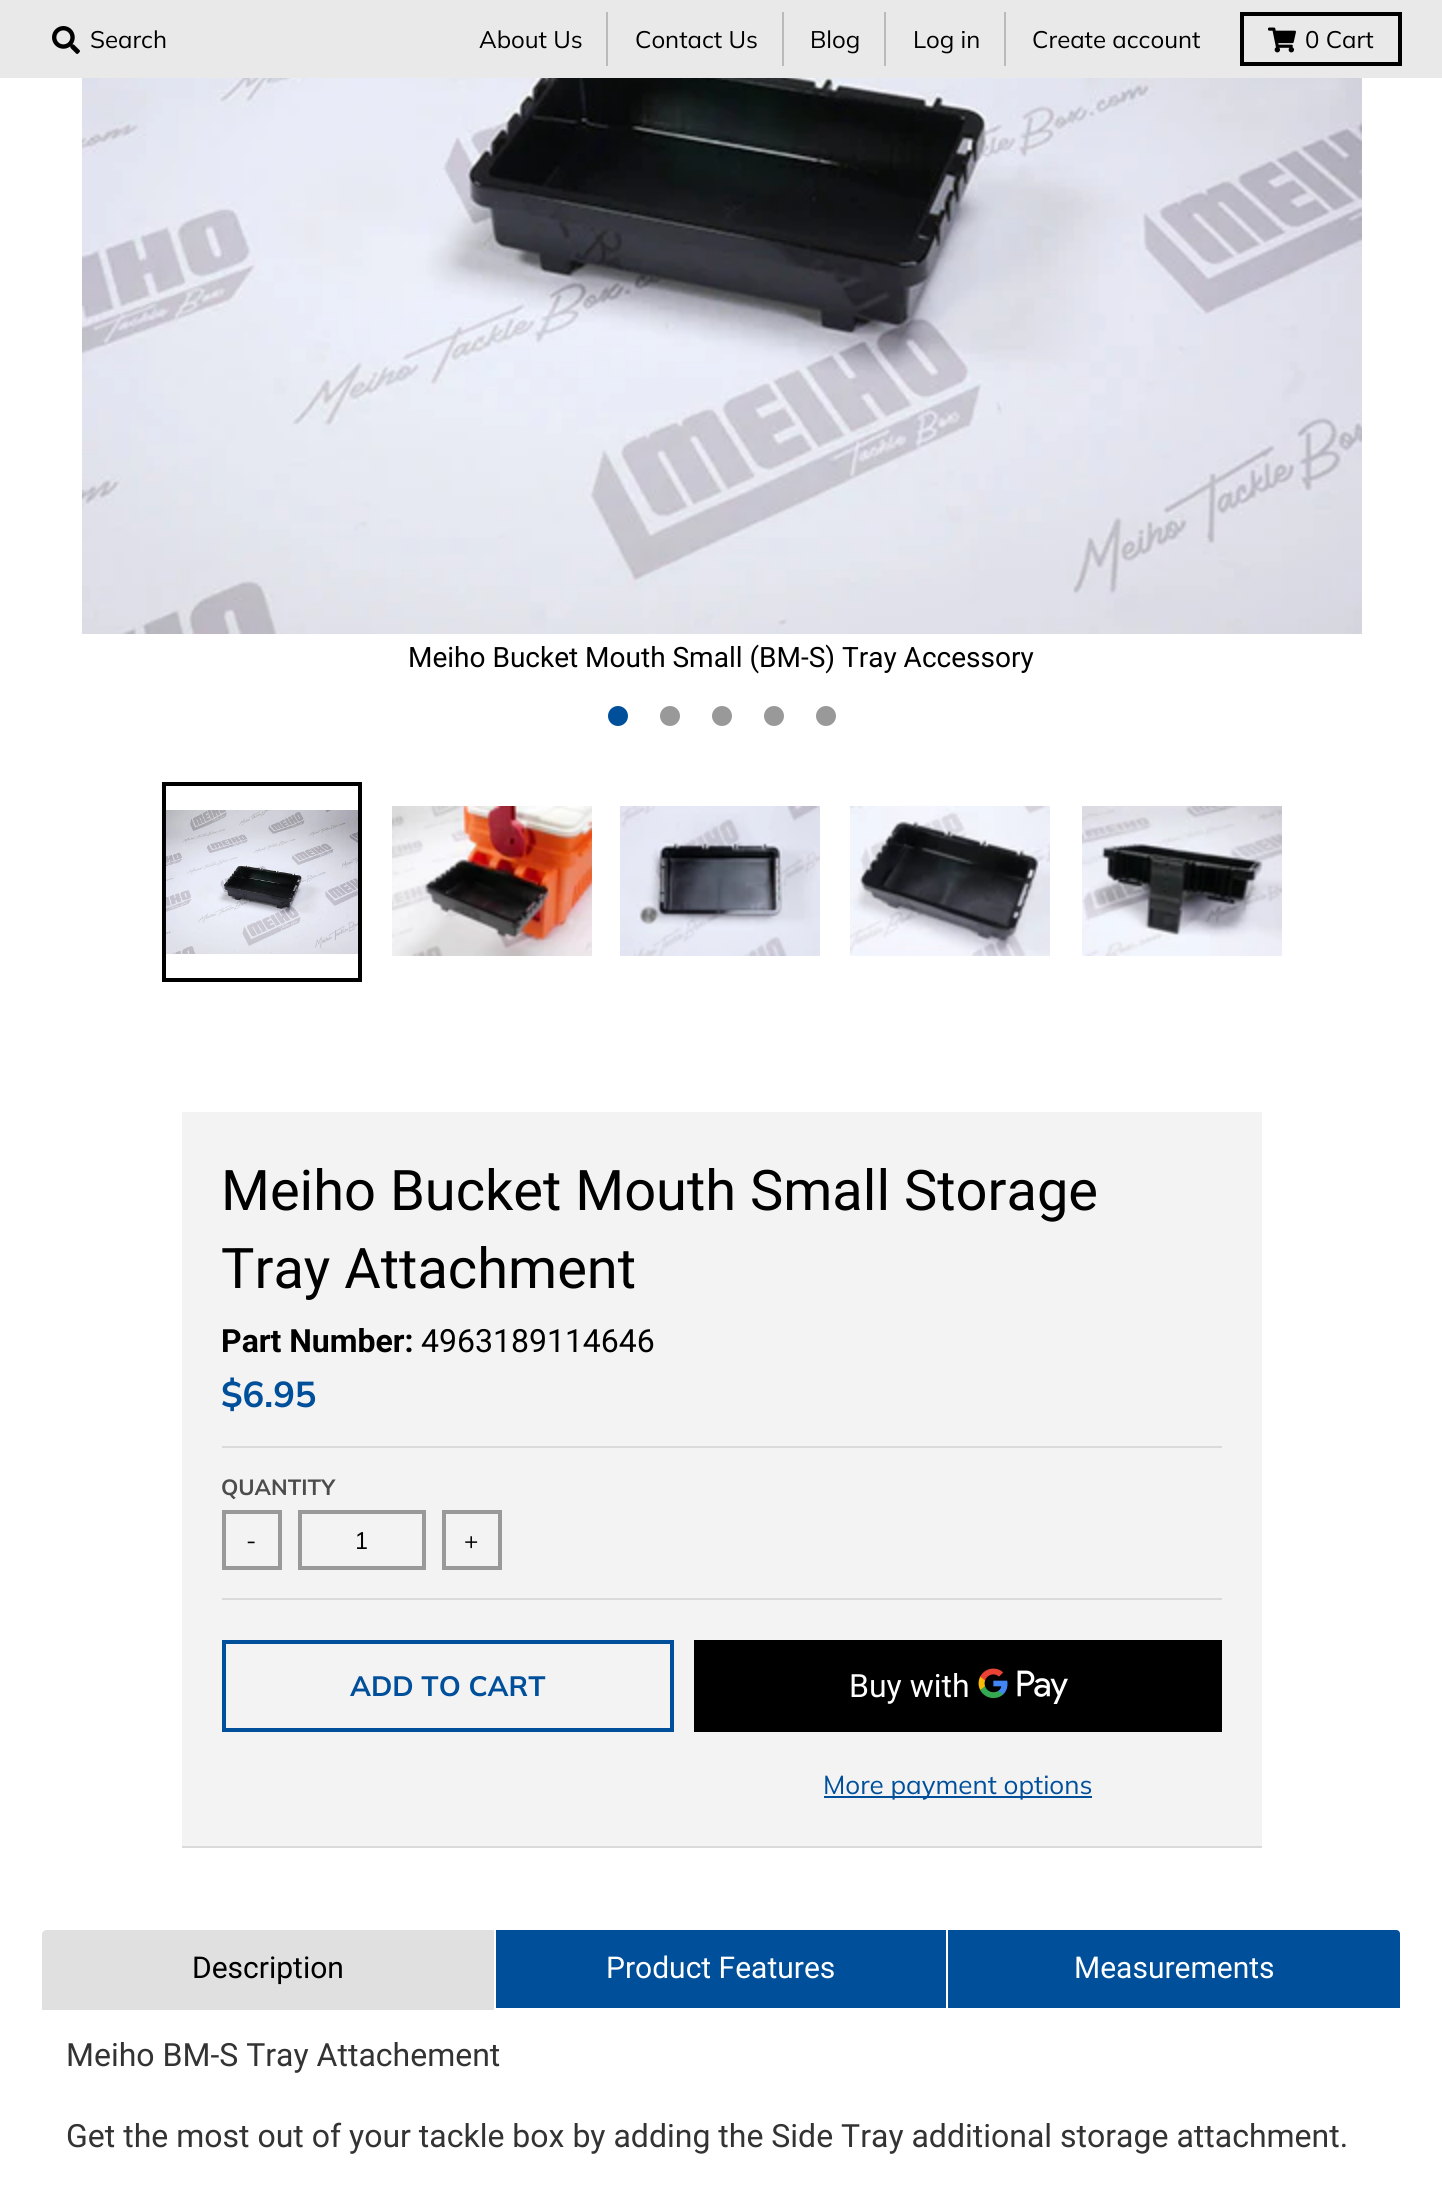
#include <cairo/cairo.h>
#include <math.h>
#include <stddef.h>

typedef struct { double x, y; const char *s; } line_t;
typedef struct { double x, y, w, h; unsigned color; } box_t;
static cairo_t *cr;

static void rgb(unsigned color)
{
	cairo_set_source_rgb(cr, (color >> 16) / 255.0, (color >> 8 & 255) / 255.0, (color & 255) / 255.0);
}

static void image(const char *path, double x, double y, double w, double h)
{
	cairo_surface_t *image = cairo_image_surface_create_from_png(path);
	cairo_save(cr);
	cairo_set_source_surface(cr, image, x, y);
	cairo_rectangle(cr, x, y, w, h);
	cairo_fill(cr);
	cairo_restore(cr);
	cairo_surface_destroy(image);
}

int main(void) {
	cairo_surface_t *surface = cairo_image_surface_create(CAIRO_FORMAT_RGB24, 1442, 2185);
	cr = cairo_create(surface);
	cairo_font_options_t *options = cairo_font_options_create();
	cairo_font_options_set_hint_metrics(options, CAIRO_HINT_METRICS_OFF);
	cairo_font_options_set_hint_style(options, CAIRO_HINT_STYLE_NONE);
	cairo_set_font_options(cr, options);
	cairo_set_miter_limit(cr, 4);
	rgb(0xffffff);
	cairo_paint(cr);
	rgb(0xe9e9e9);
	cairo_rectangle(cr, 0, 0, 1442, 78);
	cairo_fill(cr);
	image("img/1.png", 52, 26, 28, 28);
	{
		static const box_t items[] = {
			{606, 12, 2, 54, 0xbababa},
			{782, 12, 2, 54, 0xbababa},
			{884, 12, 2, 54, 0xbababa},
			{1004, 12, 2, 54, 0xbababa},
		};
		for (size_t i = 0; i < sizeof items / sizeof *items; i++) {
			rgb(items[i].color);
			cairo_rectangle(cr, items[i].x, items[i].y, items[i].w, items[i].h);
			cairo_fill(cr);
		}
	}
	cairo_rectangle(cr, 1242, 14, 158, 50);
	rgb(0x000000);
	cairo_set_line_width(cr, 4);
	cairo_stroke(cr);
	image("img/2.png", 1268, 27, 28, 26);
	image("img/3.png", 81, 78, 1281, 556);
	rgb(0x004f9b);
	cairo_arc(cr, 618, 716, 10, 0, 2 * M_PI);
	cairo_fill(cr);
	rgb(0x999999);
	cairo_arc(cr, 670, 716, 10, 0, 2 * M_PI);
	cairo_fill(cr);
	cairo_arc(cr, 722, 716, 10, 0, 2 * M_PI);
	cairo_fill(cr);
	cairo_arc(cr, 774, 716, 10, 0, 2 * M_PI);
	cairo_fill(cr);
	cairo_arc(cr, 826, 716, 10, 0, 2 * M_PI);
	cairo_fill(cr);
	cairo_rectangle(cr, 164, 784, 196, 196);
	rgb(0x000000);
	cairo_stroke(cr);
	image("img/4.png", 165, 810, 193, 144);
	image("img/5.png", 392, 806, 200, 150);
	image("img/6.png", 620, 806, 200, 150);
	image("img/7.png", 850, 806, 200, 150);
	image("img/8.png", 1082, 806, 200, 150);
	{
		static const box_t items[] = {
			{182, 1112, 1080, 734, 0xf3f3f3},
			{182, 1846, 1080, 2, 0xdadada},
			{222, 1446, 1000, 2, 0xdadada},
			{222, 1598, 1000, 2, 0xdadada},
		};
		for (size_t i = 0; i < sizeof items / sizeof *items; i++) {
			rgb(items[i].color);
			cairo_rectangle(cr, items[i].x, items[i].y, items[i].w, items[i].h);
			cairo_fill(cr);
		}
	}
	cairo_rectangle(cr, 224, 1512, 56, 56);
	rgb(0x999999);
	cairo_stroke(cr);
	cairo_rectangle(cr, 300, 1512, 124, 56);
	cairo_stroke(cr);
	cairo_rectangle(cr, 444, 1512, 56, 56);
	cairo_stroke(cr);
	cairo_rectangle(cr, 224, 1642, 448, 88);
	rgb(0x004f9b);
	cairo_stroke(cr);
	rgb(0x000000);
	cairo_rectangle(cr, 694, 1640, 528, 92);
	cairo_fill(cr);
	image("img/9.png", 978, 1668, 90, 36);
	rgb(0x004f9b);
	cairo_rectangle(cr, 824, 1796, 268, 2);
	cairo_fill(cr);
	rgb(0xe0e0e0);
	cairo_new_path(cr);
	cairo_move_to(cr, 46, 1930);
	cairo_line_to(cr, 494, 1930);
	cairo_line_to(cr, 494, 2010);
	cairo_line_to(cr, 42, 2010);
	cairo_line_to(cr, 42, 1934);
	cairo_curve_to(cr, 42, 1932, 44, 1930, 46, 1930);
	cairo_close_path(cr);
	cairo_fill(cr);
	rgb(0xffffff);
	cairo_set_fill_rule(cr, CAIRO_FILL_RULE_EVEN_ODD);
	cairo_new_path(cr);
	cairo_move_to(cr, 46, 1928);
	cairo_line_to(cr, 496, 1928);
	cairo_line_to(cr, 496, 2010);
	cairo_line_to(cr, 40, 2010);
	cairo_line_to(cr, 40, 1934);
	cairo_curve_to(cr, 40, 1931, 43, 1928, 46, 1928);
	cairo_close_path(cr);
	cairo_move_to(cr, 46, 1930);
	cairo_line_to(cr, 494, 1930);
	cairo_line_to(cr, 494, 2010);
	cairo_line_to(cr, 42, 2010);
	cairo_line_to(cr, 42, 1934);
	cairo_curve_to(cr, 42, 1932, 44, 1930, 46, 1930);
	cairo_close_path(cr);
	cairo_fill(cr);
	rgb(0x004f9b);
	cairo_rectangle(cr, 496, 1930, 450, 78);
	cairo_fill(cr);
	cairo_new_path(cr);
	cairo_move_to(cr, 947, 1929);
	cairo_line_to(cr, 1396, 1929);
	cairo_curve_to(cr, 1399, 1929, 1401, 1931, 1401, 1934);
	cairo_line_to(cr, 1401, 2009);
	cairo_line_to(cr, 947, 2009);
	cairo_close_path(cr);
	cairo_fill_preserve(cr);
	rgb(0xffffff);
	cairo_set_line_width(cr, 2);
	cairo_stroke(cr);
	cairo_select_font_face(cr, "Muli", CAIRO_FONT_SLANT_NORMAL, CAIRO_FONT_WEIGHT_NORMAL);
	cairo_set_font_size(cr, 24);
	rgb(0x000000);
	{
		static const line_t items[] = {
			{90, 48, "Search"},
			{479, 48, "About Us"},
			{635, 48, "Contact Us"},
			{810, 48, "Blog"},
			{913, 48, "Log in"},
			{1032, 48, "Create account"},
			{1305, 48, "0 Cart"},
		};
		for (size_t i = 0; i < sizeof items / sizeof *items; i++) {
			cairo_move_to(cr, items[i].x, items[i].y);
			cairo_show_text(cr, items[i].s);
		}
	}
	cairo_select_font_face(cr, "Roboto", CAIRO_FONT_SLANT_NORMAL, CAIRO_FONT_WEIGHT_NORMAL);
	cairo_set_font_size(cr, 28);
	cairo_move_to(cr, 408, 667);
	cairo_show_text(cr, "Meiho Bucket Mouth Small (BM-S) Tray Accessory");
	cairo_set_font_size(cr, 56);
	cairo_move_to(cr, 221, 1210);
	cairo_show_text(cr, "Meiho Bucket Mouth Small Storage");
	cairo_move_to(cr, 221, 1288);
	cairo_show_text(cr, "Tray Attachment");
	cairo_select_font_face(cr, "Roboto", CAIRO_FONT_SLANT_NORMAL, CAIRO_FONT_WEIGHT_BOLD);
	cairo_set_font_size(cr, 32);
	cairo_move_to(cr, 221, 1352);
	cairo_show_text(cr, "Part Number:");
	cairo_select_font_face(cr, "Roboto", CAIRO_FONT_SLANT_NORMAL, CAIRO_FONT_WEIGHT_NORMAL);
	cairo_move_to(cr, 421, 1352);
	cairo_show_text(cr, "4963189114646");
	cairo_select_font_face(cr, "Muli", CAIRO_FONT_SLANT_NORMAL, CAIRO_FONT_WEIGHT_BOLD);
	cairo_set_font_size(cr, 36);
	rgb(0x004f9b);
	cairo_move_to(cr, 221, 1407);
	cairo_show_text(cr, "$6.95");
	cairo_set_font_size(cr, 22);
	rgb(0x4c4c4c);
	cairo_move_to(cr, 221, 1495);
	cairo_show_text(cr, "QUANTITY");
	cairo_select_font_face(cr, "Muli", CAIRO_FONT_SLANT_NORMAL, CAIRO_FONT_WEIGHT_NORMAL);
	cairo_set_font_size(cr, 24);
	rgb(0x000000);
	{
		static const line_t items[] = {
			{246, 1549, "-"},
			{354, 1549, "1"},
			{464, 1549, "+"},
		};
		for (size_t i = 0; i < sizeof items / sizeof *items; i++) {
			cairo_move_to(cr, items[i].x, items[i].y);
			cairo_show_text(cr, items[i].s);
		}
	}
	cairo_select_font_face(cr, "Muli", CAIRO_FONT_SLANT_NORMAL, CAIRO_FONT_WEIGHT_BOLD);
	cairo_set_font_size(cr, 28);
	rgb(0x004f9b);
	cairo_move_to(cr, 350, 1696);
	cairo_show_text(cr, "ADD TO CART");
	cairo_select_font_face(cr, "Roboto", CAIRO_FONT_SLANT_NORMAL, CAIRO_FONT_WEIGHT_NORMAL);
	cairo_set_font_size(cr, 32);
	rgb(0xffffff);
	cairo_move_to(cr, 849, 1697);
	cairo_show_text(cr, "Buy with");
	cairo_select_font_face(cr, "Muli", CAIRO_FONT_SLANT_NORMAL, CAIRO_FONT_WEIGHT_NORMAL);
	cairo_set_font_size(cr, 26);
	rgb(0x004f9b);
	cairo_move_to(cr, 823, 1794);
	cairo_show_text(cr, "More payment options");
	cairo_select_font_face(cr, "Roboto", CAIRO_FONT_SLANT_NORMAL, CAIRO_FONT_WEIGHT_NORMAL);
	cairo_set_font_size(cr, 30);
	rgb(0x000000);
	cairo_move_to(cr, 192, 1978);
	cairo_show_text(cr, "Description");
	rgb(0xffffff);
	cairo_move_to(cr, 606, 1978);
	cairo_show_text(cr, "Product Features");
	cairo_move_to(cr, 1074, 1978);
	cairo_show_text(cr, "Measurements");
	cairo_set_font_size(cr, 32);
	rgb(0x333333);
	cairo_move_to(cr, 66, 2066);
	cairo_show_text(cr, "Meiho BM-S Tray Attachement");
	cairo_move_to(cr, 66, 2147);
	cairo_show_text(cr, "Get the most out of your tackle box by adding the Side Tray additional storage attachment.");
	cairo_surface_write_to_png(surface, "page.png");
	cairo_font_options_destroy(options);
	cairo_destroy(cr);
	cairo_surface_destroy(surface);
	return 0;
}
